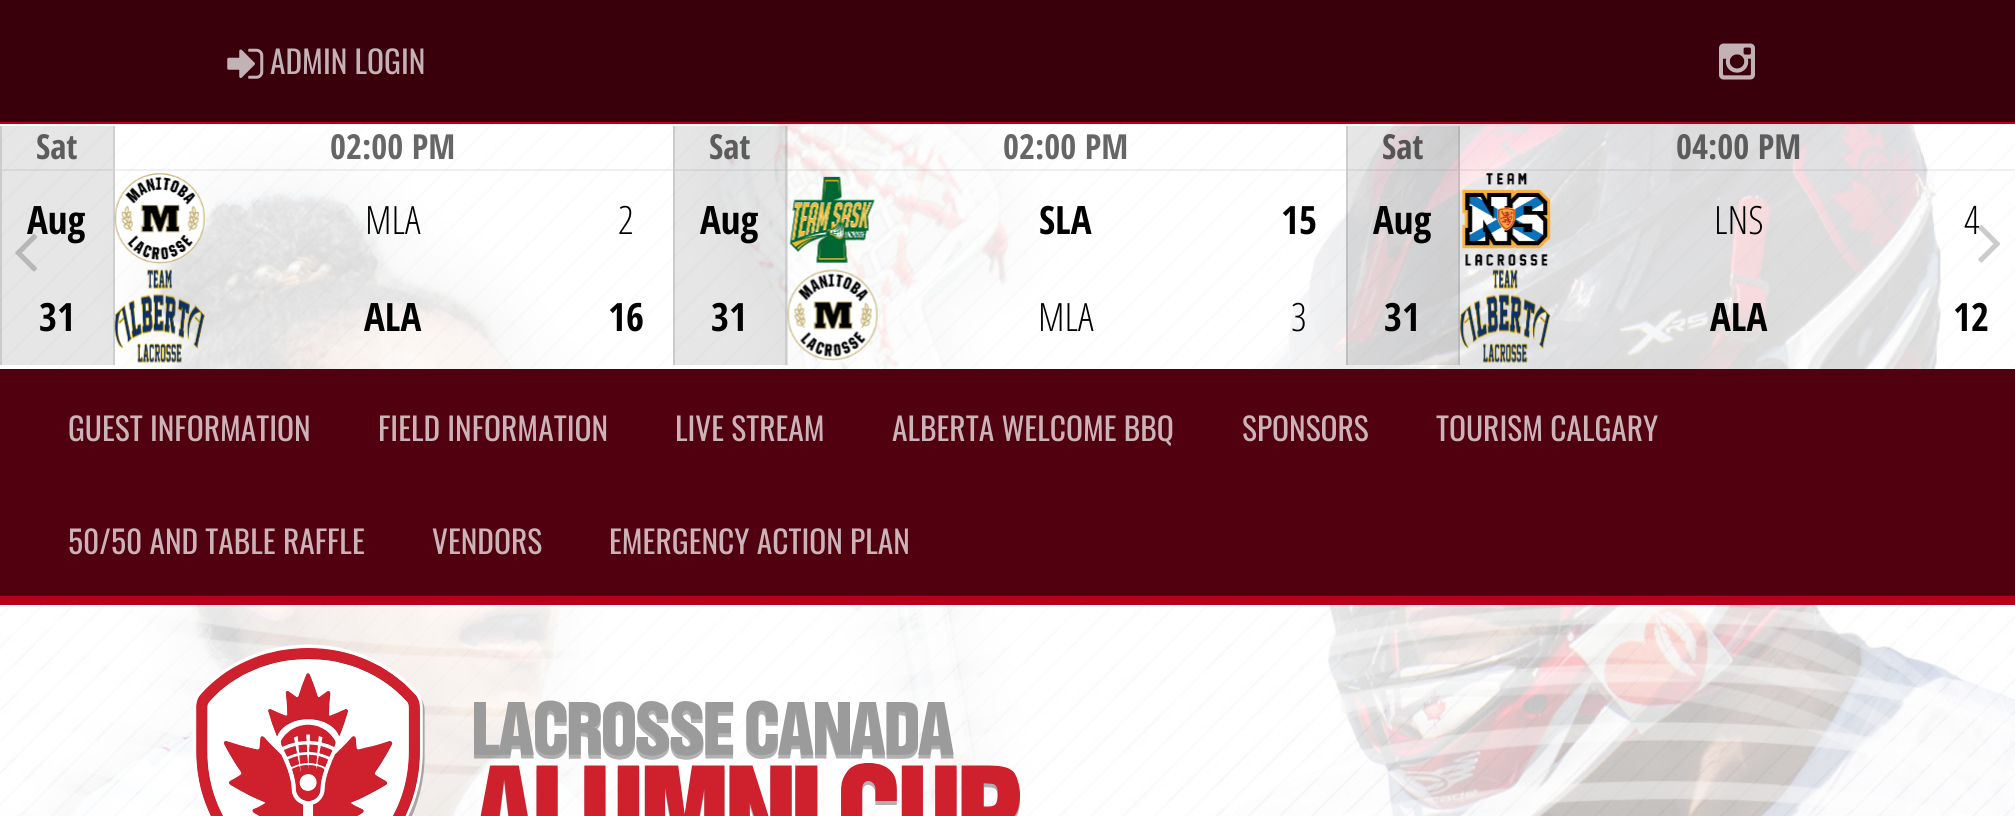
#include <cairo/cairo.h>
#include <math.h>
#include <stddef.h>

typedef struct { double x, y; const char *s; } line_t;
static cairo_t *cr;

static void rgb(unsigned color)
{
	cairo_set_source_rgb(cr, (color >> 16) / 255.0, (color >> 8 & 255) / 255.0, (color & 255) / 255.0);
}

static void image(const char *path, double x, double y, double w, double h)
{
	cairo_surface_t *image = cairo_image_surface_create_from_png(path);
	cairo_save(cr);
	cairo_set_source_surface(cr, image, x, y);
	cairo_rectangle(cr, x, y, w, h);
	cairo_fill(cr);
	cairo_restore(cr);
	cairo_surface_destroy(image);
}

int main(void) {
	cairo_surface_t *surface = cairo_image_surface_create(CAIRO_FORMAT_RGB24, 2015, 816);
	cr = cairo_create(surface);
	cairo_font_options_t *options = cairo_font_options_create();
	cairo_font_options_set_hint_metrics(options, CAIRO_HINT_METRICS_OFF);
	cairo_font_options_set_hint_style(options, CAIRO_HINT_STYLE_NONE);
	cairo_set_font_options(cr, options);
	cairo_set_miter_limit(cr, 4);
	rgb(0xffffff);
	cairo_paint(cr);
	rgb(0xb7001b);
	cairo_rectangle(cr, 0, 122, 2015, 2);
	cairo_fill(cr);
	rgb(0x39000b);
	cairo_rectangle(cr, 0, 0, 2015, 122);
	cairo_fill(cr);
	image("img/1.png", 227, 48, 37, 31);
	image("img/2.png", 1719, 43, 36, 37);
	image("img/3.png", 0, 124, 2015, 692);
	cairo_set_source_rgba(cr, 1, 1, 1, 0.6);
	cairo_rectangle(cr, 0, 124, 2015, 245);
	cairo_fill(cr);
	rgb(0x510010);
	cairo_rectangle(cr, 0, 369, 2015, 227);
	cairo_fill(cr);
	cairo_set_source_rgba(cr, 0, 0, 0, 0.2);
	cairo_rectangle(cr, 0, 126, 2, 239);
	cairo_fill(cr);
	cairo_set_source_rgba(cr, 0, 0, 0, 0.1);
	cairo_rectangle(cr, 2, 126, 113, 239);
	cairo_fill(cr);
	cairo_rectangle(cr, 113, 126, 2, 239);
	cairo_fill(cr);
	cairo_set_source_rgba(cr, 0, 0, 0, 0.06);
	cairo_rectangle(cr, 2, 169, 111, 2);
	cairo_fill(cr);
	cairo_rectangle(cr, 115, 169, 558, 2);
	cairo_fill(cr);
	image("img/4.png", 114, 173, 91, 91);
	image("img/5.png", 114, 269, 91, 94);
	cairo_set_source_rgba(cr, 0, 0, 0, 0.2);
	cairo_rectangle(cr, 673, 126, 2, 239);
	cairo_fill(cr);
	cairo_set_source_rgba(cr, 0, 0, 0, 0.1);
	cairo_rectangle(cr, 675, 126, 113, 239);
	cairo_fill(cr);
	cairo_rectangle(cr, 785, 126, 2, 239);
	cairo_fill(cr);
	cairo_set_source_rgba(cr, 0, 0, 0, 0.06);
	cairo_rectangle(cr, 675, 169, 110, 2);
	cairo_fill(cr);
	cairo_rectangle(cr, 788, 169, 558, 2);
	cairo_fill(cr);
	image("img/6.png", 789, 176, 86, 87);
	image("img/7.png", 787, 269, 91, 92);
	cairo_set_source_rgba(cr, 0, 0, 0, 0.2);
	cairo_rectangle(cr, 1346, 126, 2, 239);
	cairo_fill(cr);
	cairo_set_source_rgba(cr, 0, 0, 0, 0.1);
	cairo_rectangle(cr, 1348, 126, 112, 239);
	cairo_fill(cr);
	cairo_rectangle(cr, 1458, 126, 2, 239);
	cairo_fill(cr);
	cairo_set_source_rgba(cr, 0, 0, 0, 0.06);
	cairo_rectangle(cr, 1348, 169, 110, 2);
	cairo_fill(cr);
	cairo_rectangle(cr, 1460, 169, 555, 2);
	cairo_fill(cr);
	image("img/8.png", 1462, 173, 89, 93);
	image("img/9.png", 1460, 269, 91, 94);
	rgb(0xb7001b);
	cairo_rectangle(cr, 0, 596, 2015, 9);
	cairo_fill(cr);
	image("img/12.png", 0, 605, 2015, 211);
	image("img/13.png", 193, 644, 827, 172);
	cairo_select_font_face(cr, "Oswald", CAIRO_FONT_SLANT_NORMAL, CAIRO_FONT_WEIGHT_NORMAL);
	cairo_set_font_size(cr, 31.5);
	rgb(0xc4b3b6);
	cairo_move_to(cr, 270, 74);
	cairo_show_text(cr, "ADMIN LOGIN");
	cairo_select_font_face(cr, "Open Sans Condensed", CAIRO_FONT_SLANT_NORMAL, CAIRO_FONT_WEIGHT_BOLD);
	cairo_set_font_size(cr, 34.5);
	rgb(0x5c5c5c);
	cairo_move_to(cr, 36, 159);
	cairo_show_text(cr, "Sat");
	cairo_set_font_size(cr, 39);
	rgb(0x000000);
	cairo_move_to(cr, 27, 234);
	cairo_show_text(cr, "Aug");
	cairo_move_to(cr, 39, 331);
	cairo_show_text(cr, "31");
	cairo_set_font_size(cr, 34.5);
	rgb(0x666666);
	cairo_move_to(cr, 330, 159);
	cairo_show_text(cr, "02:00 PM");
	cairo_select_font_face(cr, "Open Sans Condensed Light", CAIRO_FONT_SLANT_NORMAL, CAIRO_FONT_WEIGHT_NORMAL);
	cairo_set_font_size(cr, 39);
	rgb(0x000000);
	cairo_move_to(cr, 365, 234);
	cairo_show_text(cr, "MLA");
	cairo_select_font_face(cr, "Open Sans Condensed", CAIRO_FONT_SLANT_NORMAL, CAIRO_FONT_WEIGHT_BOLD);
	cairo_move_to(cr, 364, 331);
	cairo_show_text(cr, "ALA");
	cairo_select_font_face(cr, "Open Sans Condensed Light", CAIRO_FONT_SLANT_NORMAL, CAIRO_FONT_WEIGHT_NORMAL);
	cairo_move_to(cr, 618, 234);
	cairo_show_text(cr, "2");
	cairo_select_font_face(cr, "Open Sans Condensed", CAIRO_FONT_SLANT_NORMAL, CAIRO_FONT_WEIGHT_BOLD);
	cairo_move_to(cr, 608, 331);
	cairo_show_text(cr, "16");
	cairo_set_font_size(cr, 34.5);
	rgb(0x5c5c5c);
	cairo_move_to(cr, 709, 159);
	cairo_show_text(cr, "Sat");
	cairo_set_font_size(cr, 39);
	rgb(0x000000);
	cairo_move_to(cr, 700, 234);
	cairo_show_text(cr, "Aug");
	cairo_move_to(cr, 711, 331);
	cairo_show_text(cr, "31");
	cairo_set_font_size(cr, 34.5);
	rgb(0x666666);
	cairo_move_to(cr, 1003, 159);
	cairo_show_text(cr, "02:00 PM");
	cairo_set_font_size(cr, 39);
	rgb(0x000000);
	cairo_move_to(cr, 1039, 234);
	cairo_show_text(cr, "SLA");
	cairo_select_font_face(cr, "Open Sans Condensed Light", CAIRO_FONT_SLANT_NORMAL, CAIRO_FONT_WEIGHT_NORMAL);
	cairo_move_to(cr, 1038, 331);
	cairo_show_text(cr, "MLA");
	cairo_select_font_face(cr, "Open Sans Condensed", CAIRO_FONT_SLANT_NORMAL, CAIRO_FONT_WEIGHT_BOLD);
	cairo_move_to(cr, 1281, 234);
	cairo_show_text(cr, "15");
	cairo_select_font_face(cr, "Open Sans Condensed Light", CAIRO_FONT_SLANT_NORMAL, CAIRO_FONT_WEIGHT_NORMAL);
	cairo_move_to(cr, 1291, 331);
	cairo_show_text(cr, "3");
	cairo_select_font_face(cr, "Open Sans Condensed", CAIRO_FONT_SLANT_NORMAL, CAIRO_FONT_WEIGHT_BOLD);
	cairo_set_font_size(cr, 34.5);
	rgb(0x565455);
	cairo_move_to(cr, 1382, 159);
	cairo_show_text(cr, "Sat");
	cairo_set_font_size(cr, 39);
	rgb(0x000000);
	cairo_move_to(cr, 1373, 234);
	cairo_show_text(cr, "Aug");
	cairo_move_to(cr, 1384, 331);
	cairo_show_text(cr, "31");
	cairo_set_font_size(cr, 34.5);
	rgb(0x5c5c5c);
	cairo_move_to(cr, 1676, 159);
	cairo_show_text(cr, "04:00 PM");
	cairo_select_font_face(cr, "Open Sans Condensed Light", CAIRO_FONT_SLANT_NORMAL, CAIRO_FONT_WEIGHT_NORMAL);
	cairo_set_font_size(cr, 39);
	rgb(0x000000);
	cairo_move_to(cr, 1714, 234);
	cairo_show_text(cr, "LNS");
	cairo_select_font_face(cr, "Open Sans Condensed", CAIRO_FONT_SLANT_NORMAL, CAIRO_FONT_WEIGHT_BOLD);
	cairo_move_to(cr, 1710, 331);
	cairo_show_text(cr, "ALA");
	cairo_select_font_face(cr, "Open Sans Condensed Light", CAIRO_FONT_SLANT_NORMAL, CAIRO_FONT_WEIGHT_NORMAL);
	cairo_move_to(cr, 1964, 234);
	cairo_show_text(cr, "4");
	cairo_select_font_face(cr, "Open Sans Condensed", CAIRO_FONT_SLANT_NORMAL, CAIRO_FONT_WEIGHT_BOLD);
	cairo_move_to(cr, 1953, 331);
	cairo_show_text(cr, "12");
	image("img/10.png", 15, 234, 22, 38);
	image("img/11.png", 1978, 225, 22, 38);
	cairo_select_font_face(cr, "Oswald", CAIRO_FONT_SLANT_NORMAL, CAIRO_FONT_WEIGHT_NORMAL);
	cairo_set_font_size(cr, 31.5);
	rgb(0xcbb3b7);
	{
		static const line_t items[] = {
			{68, 441, "GUEST INFORMATION"},
			{378, 441, "FIELD INFORMATION"},
			{675, 441, "LIVE STREAM"},
			{892, 441, "ALBERTA WELCOME BBQ"},
			{1242, 441, "SPONSORS"},
			{1436, 441, "TOURISM CALGARY"},
			{68, 554, "50/50 AND TABLE RAFFLE"},
			{432, 554, "VENDORS"},
			{609, 554, "EMERGENCY ACTION PLAN"},
		};
		for (size_t i = 0; i < sizeof items / sizeof *items; i++) {
			cairo_move_to(cr, items[i].x, items[i].y);
			cairo_show_text(cr, items[i].s);
		}
	}
	cairo_surface_write_to_png(surface, "page.png");
	cairo_font_options_destroy(options);
	cairo_destroy(cr);
	cairo_surface_destroy(surface);
	return 0;
}
